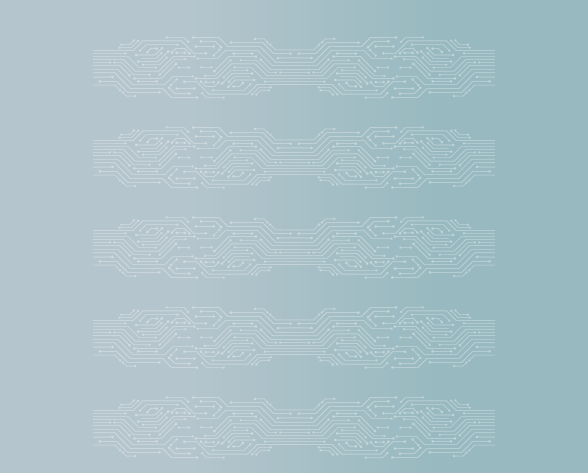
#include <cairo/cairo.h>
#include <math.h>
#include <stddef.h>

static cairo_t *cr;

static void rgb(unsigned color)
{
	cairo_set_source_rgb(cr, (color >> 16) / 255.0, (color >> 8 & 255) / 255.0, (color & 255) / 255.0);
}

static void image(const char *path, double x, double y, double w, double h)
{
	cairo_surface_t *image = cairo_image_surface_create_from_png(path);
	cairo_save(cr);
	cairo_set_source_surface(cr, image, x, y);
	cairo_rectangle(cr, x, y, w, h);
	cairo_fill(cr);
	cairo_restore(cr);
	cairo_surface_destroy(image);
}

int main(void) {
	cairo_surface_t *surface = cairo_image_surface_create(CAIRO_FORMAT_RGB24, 588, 473);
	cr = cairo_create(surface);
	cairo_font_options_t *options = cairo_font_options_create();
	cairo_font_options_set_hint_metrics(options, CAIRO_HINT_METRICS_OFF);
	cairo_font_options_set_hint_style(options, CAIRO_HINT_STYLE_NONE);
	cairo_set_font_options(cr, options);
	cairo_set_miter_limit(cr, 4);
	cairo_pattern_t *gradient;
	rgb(0xffffff);
	cairo_paint(cr);
	gradient = cairo_pattern_create_linear(0, 372, 588, 372);
	cairo_pattern_add_color_stop_rgba(gradient, 0.31, 0.71, 0.773, 0.804, 1);
	cairo_pattern_add_color_stop_rgba(gradient, 0.76, 0.592, 0.725, 0.749, 1);
	cairo_set_source(cr, gradient);
	cairo_pattern_destroy(gradient);
	cairo_rectangle(cr, 0, 0, 588, 473);
	cairo_fill(cr);
	image("img/1.png", 93, 36, 402, 63);
	image("img/1.png", 93, 126, 402, 63);
	image("img/1.png", 93, 216, 402, 63);
	image("img/1.png", 93, 306, 402, 63);
	image("img/1.png", 93, 396, 402, 63);
	cairo_surface_write_to_png(surface, "page.png");
	cairo_font_options_destroy(options);
	cairo_destroy(cr);
	cairo_surface_destroy(surface);
	return 0;
}
